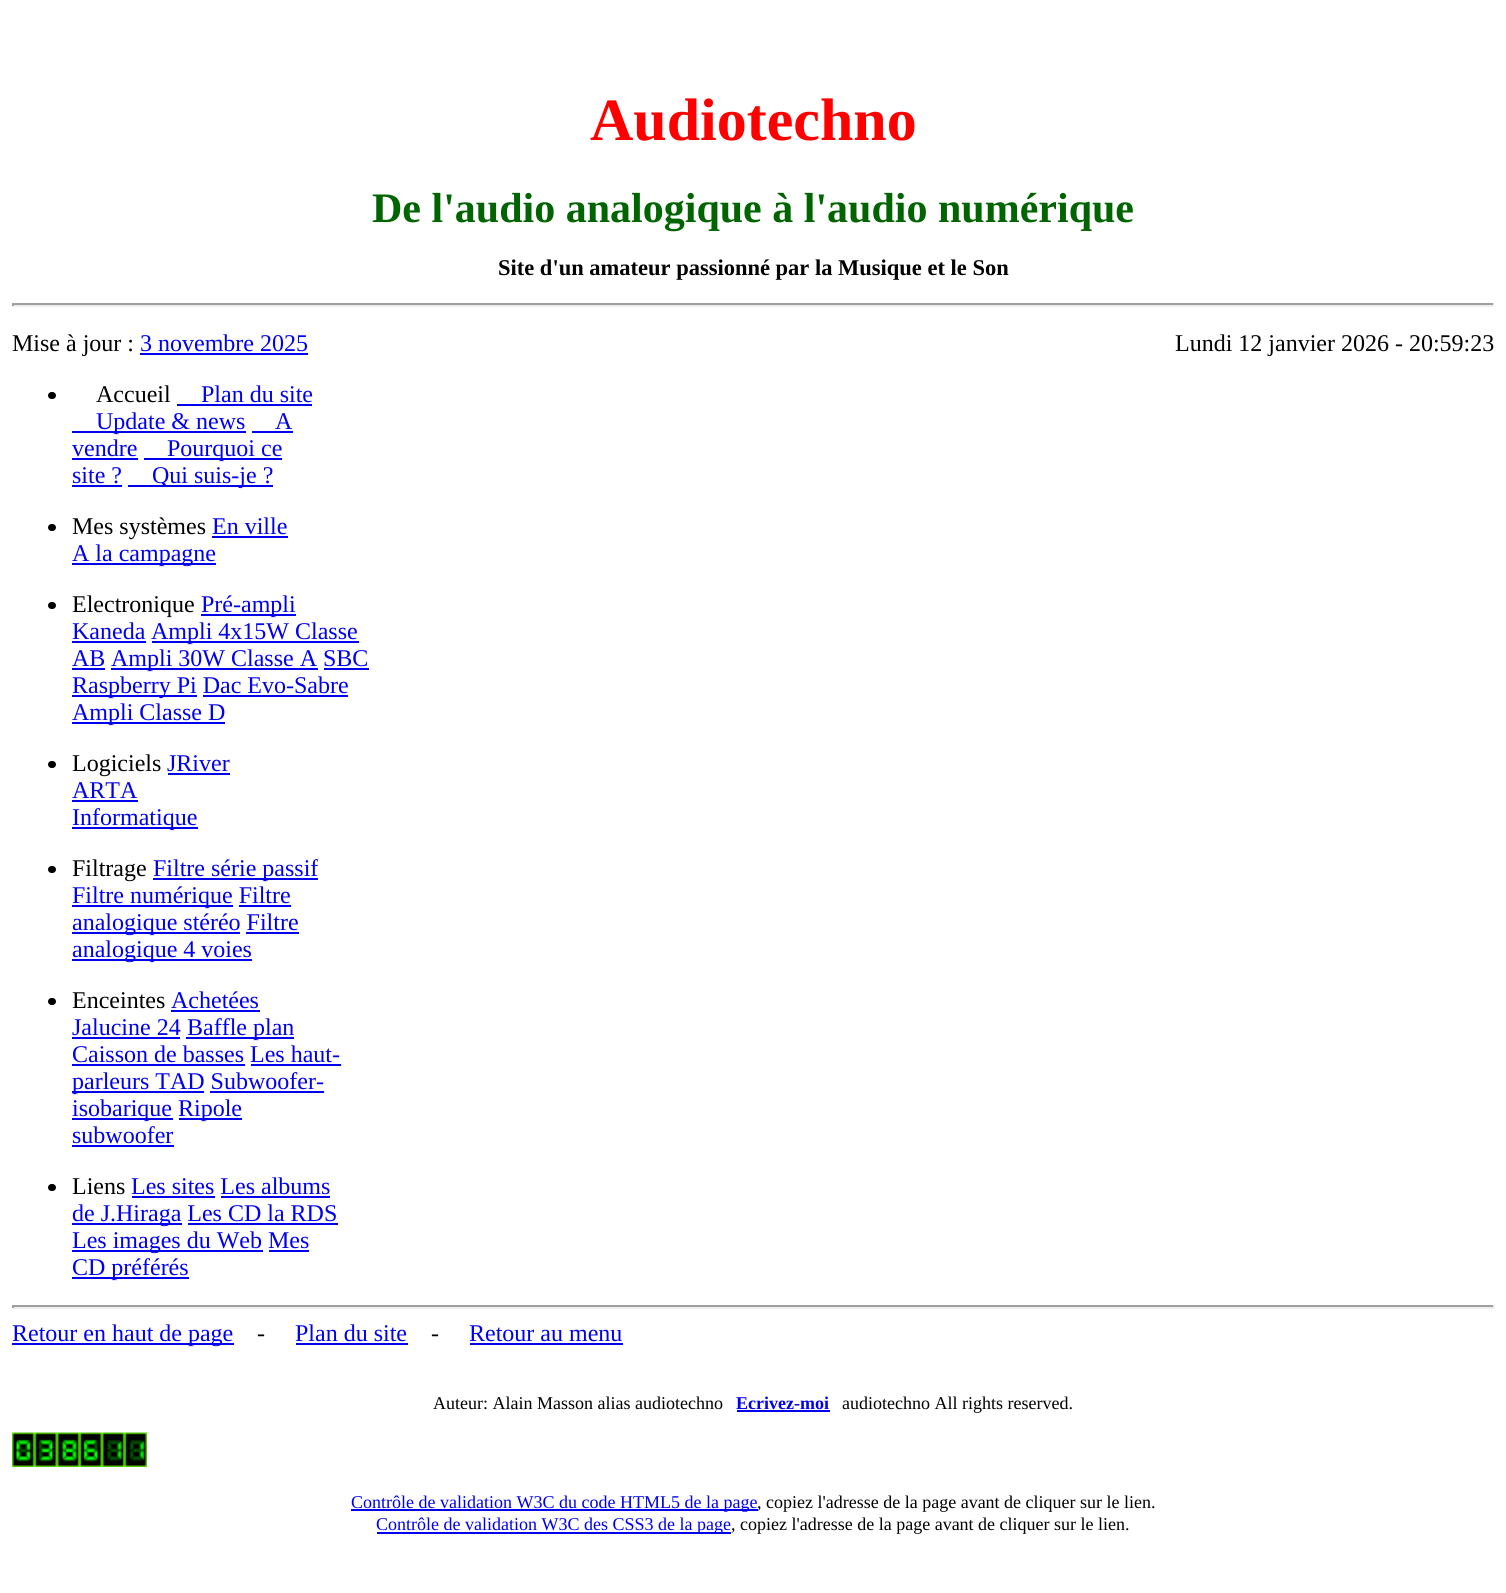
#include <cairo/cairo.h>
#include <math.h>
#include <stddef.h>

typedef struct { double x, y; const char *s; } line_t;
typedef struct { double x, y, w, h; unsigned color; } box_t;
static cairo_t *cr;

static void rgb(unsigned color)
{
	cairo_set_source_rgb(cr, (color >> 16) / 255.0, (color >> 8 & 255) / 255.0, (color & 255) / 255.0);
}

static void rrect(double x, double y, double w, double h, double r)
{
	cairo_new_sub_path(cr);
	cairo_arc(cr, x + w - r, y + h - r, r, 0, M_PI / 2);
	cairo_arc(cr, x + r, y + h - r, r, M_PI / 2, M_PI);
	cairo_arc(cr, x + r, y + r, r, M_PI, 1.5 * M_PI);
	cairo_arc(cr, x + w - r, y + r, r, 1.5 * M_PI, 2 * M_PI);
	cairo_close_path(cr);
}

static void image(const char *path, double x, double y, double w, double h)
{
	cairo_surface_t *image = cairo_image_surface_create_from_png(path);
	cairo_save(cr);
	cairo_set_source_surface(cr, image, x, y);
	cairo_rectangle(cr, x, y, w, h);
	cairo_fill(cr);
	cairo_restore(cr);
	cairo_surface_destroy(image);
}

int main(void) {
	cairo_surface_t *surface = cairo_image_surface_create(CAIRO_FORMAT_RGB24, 1506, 1593);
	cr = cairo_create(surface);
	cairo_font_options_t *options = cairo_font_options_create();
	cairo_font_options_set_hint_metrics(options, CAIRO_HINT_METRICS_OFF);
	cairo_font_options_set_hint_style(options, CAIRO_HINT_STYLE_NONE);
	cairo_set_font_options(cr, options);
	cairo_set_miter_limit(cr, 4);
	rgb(0xffffff);
	cairo_paint(cr);
	{
		static const box_t items[] = {
			{12, 303, 1482, 2, 0x9f9f9f},
			{1493, 303, 2, 3, 0xeeeeee},
			{12, 305, 1482, 2, 0xeeeeee},
			{12, 303, 2, 3, 0x9f9f9f},
			{140, 353, 168, 2, 0x0000ee},
		};
		for (size_t i = 0; i < sizeof items / sizeof *items; i++) {
			rgb(items[i].color);
			cairo_rectangle(cr, items[i].x, items[i].y, items[i].w, items[i].h);
			cairo_fill(cr);
		}
	}
	rgb(0x000000);
	rrect(48, 392, 8, 7, 3.5);
	cairo_fill(cr);
	{
		static const box_t items[] = {
			{177, 404, 135, 2, 0x0000ee},
			{72, 431, 174, 2, 0x0000ee},
			{252, 431, 41, 2, 0x0000ee},
			{72, 458, 66, 2, 0x0000ee},
			{144, 458, 138, 2, 0x0000ee},
			{72, 485, 50, 2, 0x0000ee},
			{128, 485, 145, 2, 0x0000ee},
		};
		for (size_t i = 0; i < sizeof items / sizeof *items; i++) {
			rgb(items[i].color);
			cairo_rectangle(cr, items[i].x, items[i].y, items[i].w, items[i].h);
			cairo_fill(cr);
		}
	}
	rgb(0x000000);
	rrect(48, 524, 8, 7, 3.5);
	cairo_fill(cr);
	rgb(0x0000ee);
	cairo_rectangle(cr, 212, 536, 76, 2);
	cairo_fill(cr);
	cairo_rectangle(cr, 72, 563, 144, 2);
	cairo_fill(cr);
	rgb(0x000000);
	rrect(48, 602, 8, 7, 3.5);
	cairo_fill(cr);
	{
		static const box_t items[] = {
			{201, 614, 95, 2, 0x0000ee},
			{72, 641, 74, 2, 0x0000ee},
			{152, 641, 207, 2, 0x0000ee},
			{72, 668, 33, 2, 0x0000ee},
			{111, 668, 207, 2, 0x0000ee},
			{324, 668, 45, 2, 0x0000ee},
			{72, 695, 125, 2, 0x0000ee},
			{203, 695, 145, 2, 0x0000ee},
			{72, 722, 153, 2, 0x0000ee},
		};
		for (size_t i = 0; i < sizeof items / sizeof *items; i++) {
			rgb(items[i].color);
			cairo_rectangle(cr, items[i].x, items[i].y, items[i].w, items[i].h);
			cairo_fill(cr);
		}
	}
	rgb(0x000000);
	rrect(48, 761, 8, 7, 3.5);
	cairo_fill(cr);
	{
		static const box_t items[] = {
			{168, 773, 62, 2, 0x0000ee},
			{72, 800, 66, 2, 0x0000ee},
			{72, 827, 126, 2, 0x0000ee},
		};
		for (size_t i = 0; i < sizeof items / sizeof *items; i++) {
			rgb(items[i].color);
			cairo_rectangle(cr, items[i].x, items[i].y, items[i].w, items[i].h);
			cairo_fill(cr);
		}
	}
	rgb(0x000000);
	rrect(48, 866, 8, 7, 3.5);
	cairo_fill(cr);
	{
		static const box_t items[] = {
			{153, 878, 165, 2, 0x0000ee},
			{72, 905, 161, 2, 0x0000ee},
			{239, 905, 52, 2, 0x0000ee},
			{72, 932, 168, 2, 0x0000ee},
			{246, 932, 53, 2, 0x0000ee},
			{72, 959, 180, 2, 0x0000ee},
		};
		for (size_t i = 0; i < sizeof items / sizeof *items; i++) {
			rgb(items[i].color);
			cairo_rectangle(cr, items[i].x, items[i].y, items[i].w, items[i].h);
			cairo_fill(cr);
		}
	}
	rgb(0x000000);
	rrect(48, 998, 8, 7, 3.5);
	cairo_fill(cr);
	{
		static const box_t items[] = {
			{171, 1010, 89, 2, 0x0000ee},
			{72, 1037, 108, 2, 0x0000ee},
			{186, 1037, 108, 2, 0x0000ee},
			{72, 1064, 173, 2, 0x0000ee},
			{251, 1064, 90, 2, 0x0000ee},
			{72, 1091, 132, 2, 0x0000ee},
			{210, 1091, 114, 2, 0x0000ee},
			{72, 1118, 101, 2, 0x0000ee},
			{179, 1118, 63, 2, 0x0000ee},
			{72, 1145, 102, 2, 0x0000ee},
		};
		for (size_t i = 0; i < sizeof items / sizeof *items; i++) {
			rgb(items[i].color);
			cairo_rectangle(cr, items[i].x, items[i].y, items[i].w, items[i].h);
			cairo_fill(cr);
		}
	}
	rgb(0x000000);
	rrect(48, 1184, 8, 7, 3.5);
	cairo_fill(cr);
	{
		static const box_t items[] = {
			{132, 1196, 83, 2, 0x0000ee},
			{221, 1196, 109, 2, 0x0000ee},
			{72, 1223, 110, 2, 0x0000ee},
			{188, 1223, 150, 2, 0x0000ee},
			{72, 1250, 191, 2, 0x0000ee},
			{269, 1250, 40, 2, 0x0000ee},
			{72, 1277, 117, 2, 0x0000ee},
			{12, 1305, 1482, 2, 0x9f9f9f},
			{1493, 1305, 2, 3, 0xeeeeee},
			{12, 1307, 1482, 2, 0xeeeeee},
			{12, 1305, 2, 3, 0x9f9f9f},
			{12, 1343, 222, 2, 0x0000ee},
			{296, 1343, 112, 2, 0x0000ee},
			{470, 1343, 153, 2, 0x0000ee},
			{737, 1410, 93, 2, 0x0000ee},
		};
		for (size_t i = 0; i < sizeof items / sizeof *items; i++) {
			rgb(items[i].color);
			cairo_rectangle(cr, items[i].x, items[i].y, items[i].w, items[i].h);
			cairo_fill(cr);
		}
	}
	image("img/1.png", 12, 1432, 135, 35);
	cairo_rectangle(cr, 351, 1509, 407, 2);
	cairo_fill(cr);
	cairo_rectangle(cr, 377, 1532, 354, 2);
	cairo_fill(cr);
	cairo_select_font_face(cr, "Liberation Serif", CAIRO_FONT_SLANT_NORMAL, CAIRO_FONT_WEIGHT_BOLD);
	cairo_set_font_size(cr, 60);
	rgb(0xff0000);
	cairo_move_to(cr, 590, 140);
	cairo_show_text(cr, "Audiotechno");
	cairo_set_font_size(cr, 42);
	rgb(0x006400);
	cairo_move_to(cr, 372, 222);
	cairo_show_text(cr, "De l'audio analogique à l'audio numérique");
	cairo_set_font_size(cr, 22.5);
	rgb(0x000000);
	cairo_move_to(cr, 498, 275);
	cairo_show_text(cr, "Site d'un amateur passionné par la Musique et le Son");
	cairo_select_font_face(cr, "Liberation Serif", CAIRO_FONT_SLANT_NORMAL, CAIRO_FONT_WEIGHT_NORMAL);
	cairo_set_font_size(cr, 24);
	cairo_move_to(cr, 12, 351);
	cairo_show_text(cr, "Mise à jour :");
	rgb(0x0000ee);
	cairo_move_to(cr, 140, 351);
	cairo_show_text(cr, "3 novembre 2025");
	rgb(0x000000);
	cairo_move_to(cr, 1175, 351);
	cairo_show_text(cr, "Lundi 12 janvier 2026 - 20:59:23");
	cairo_move_to(cr, 96, 402);
	cairo_show_text(cr, "Accueil");
	rgb(0x0000ee);
	{
		static const line_t items[] = {
			{201, 402, "Plan du site"},
			{96, 429, "Update & news"},
			{275, 429, "A"},
			{72, 456, "vendre"},
			{167, 456, "Pourquoi ce"},
			{72, 483, "site ?"},
			{152, 483, "Qui suis-je ?"},
		};
		for (size_t i = 0; i < sizeof items / sizeof *items; i++) {
			cairo_move_to(cr, items[i].x, items[i].y);
			cairo_show_text(cr, items[i].s);
		}
	}
	rgb(0x000000);
	cairo_move_to(cr, 72, 534);
	cairo_show_text(cr, "Mes systèmes");
	rgb(0x0000ee);
	cairo_move_to(cr, 212, 534);
	cairo_show_text(cr, "En ville");
	cairo_move_to(cr, 72, 561);
	cairo_show_text(cr, "A la campagne");
	rgb(0x000000);
	cairo_move_to(cr, 72, 612);
	cairo_show_text(cr, "Electronique");
	rgb(0x0000ee);
	{
		static const line_t items[] = {
			{201, 612, "Pré-ampli"},
			{72, 639, "Kaneda"},
			{151, 639, "Ampli 4x15W Classe"},
			{72, 666, "AB"},
			{111, 666, "Ampli 30W Classe A SBC"},
			{72, 693, "Raspberry Pi Dac Evo-Sabre"},
			{72, 720, "Ampli Classe D"},
		};
		for (size_t i = 0; i < sizeof items / sizeof *items; i++) {
			cairo_move_to(cr, items[i].x, items[i].y);
			cairo_show_text(cr, items[i].s);
		}
	}
	rgb(0x000000);
	cairo_move_to(cr, 72, 771);
	cairo_show_text(cr, "Logiciels");
	rgb(0x0000ee);
	{
		static const line_t items[] = {
			{167, 771, "JRiver"},
			{72, 798, "ARTA"},
			{72, 825, "Informatique"},
		};
		for (size_t i = 0; i < sizeof items / sizeof *items; i++) {
			cairo_move_to(cr, items[i].x, items[i].y);
			cairo_show_text(cr, items[i].s);
		}
	}
	rgb(0x000000);
	cairo_move_to(cr, 72, 876);
	cairo_show_text(cr, "Filtrage");
	rgb(0x0000ee);
	{
		static const line_t items[] = {
			{153, 876, "Filtre série passif"},
			{72, 903, "Filtre numérique Filtre"},
			{72, 930, "analogique stéréo Filtre"},
			{72, 957, "analogique 4 voies"},
		};
		for (size_t i = 0; i < sizeof items / sizeof *items; i++) {
			cairo_move_to(cr, items[i].x, items[i].y);
			cairo_show_text(cr, items[i].s);
		}
	}
	rgb(0x000000);
	cairo_move_to(cr, 72, 1008);
	cairo_show_text(cr, "Enceintes");
	rgb(0x0000ee);
	{
		static const line_t items[] = {
			{171, 1008, "Achetées"},
			{72, 1035, "Jalucine 24"},
			{187, 1035, "Baffle plan"},
			{72, 1062, "Caisson de basses Les haut-"},
			{72, 1089, "parleurs TAD Subwoofer-"},
			{72, 1116, "isobarique"},
			{178, 1116, "Ripole"},
			{72, 1143, "subwoofer"},
		};
		for (size_t i = 0; i < sizeof items / sizeof *items; i++) {
			cairo_move_to(cr, items[i].x, items[i].y);
			cairo_show_text(cr, items[i].s);
		}
	}
	rgb(0x000000);
	cairo_move_to(cr, 72, 1194);
	cairo_show_text(cr, "Liens");
	rgb(0x0000ee);
	{
		static const line_t items[] = {
			{131, 1194, "Les sites Les albums"},
			{72, 1221, "de J.Hiraga Les CD la RDS"},
			{72, 1248, "Les images du Web Mes"},
			{72, 1275, "CD préférés"},
			{12, 1341, "Retour en haut de page"},
		};
		for (size_t i = 0; i < sizeof items / sizeof *items; i++) {
			cairo_move_to(cr, items[i].x, items[i].y);
			cairo_show_text(cr, items[i].s);
		}
	}
	rgb(0x000000);
	cairo_move_to(cr, 257, 1341);
	cairo_show_text(cr, "-");
	rgb(0x0000ee);
	cairo_move_to(cr, 295, 1341);
	cairo_show_text(cr, "Plan du site");
	rgb(0x000000);
	cairo_move_to(cr, 431, 1341);
	cairo_show_text(cr, "-");
	rgb(0x0000ee);
	cairo_move_to(cr, 469, 1341);
	cairo_show_text(cr, "Retour au menu");
	cairo_set_font_size(cr, 18);
	rgb(0x000000);
	cairo_move_to(cr, 433, 1409);
	cairo_show_text(cr, "Auteur: Alain Masson alias audiotechno");
	cairo_select_font_face(cr, "Liberation Serif", CAIRO_FONT_SLANT_NORMAL, CAIRO_FONT_WEIGHT_BOLD);
	rgb(0x0000ee);
	cairo_move_to(cr, 736, 1409);
	cairo_show_text(cr, "Ecrivez-moi");
	cairo_select_font_face(cr, "Liberation Serif", CAIRO_FONT_SLANT_NORMAL, CAIRO_FONT_WEIGHT_NORMAL);
	rgb(0x000000);
	cairo_move_to(cr, 842, 1409);
	cairo_show_text(cr, "audiotechno All rights reserved.");
	rgb(0x0000ee);
	cairo_move_to(cr, 351, 1508);
	cairo_show_text(cr, "Contrôle de validation W3C du code HTML5 de la page");
	rgb(0x000000);
	cairo_move_to(cr, 757, 1508);
	cairo_show_text(cr, ", copiez l'adresse de la page avant de cliquer sur le lien.");
	rgb(0x0000ee);
	cairo_move_to(cr, 376, 1530);
	cairo_show_text(cr, "Contrôle de validation W3C des CSS3 de la page");
	rgb(0x000000);
	cairo_move_to(cr, 731, 1530);
	cairo_show_text(cr, ", copiez l'adresse de la page avant de cliquer sur le lien.");
	cairo_surface_write_to_png(surface, "page.png");
	cairo_font_options_destroy(options);
	cairo_destroy(cr);
	cairo_surface_destroy(surface);
	return 0;
}
